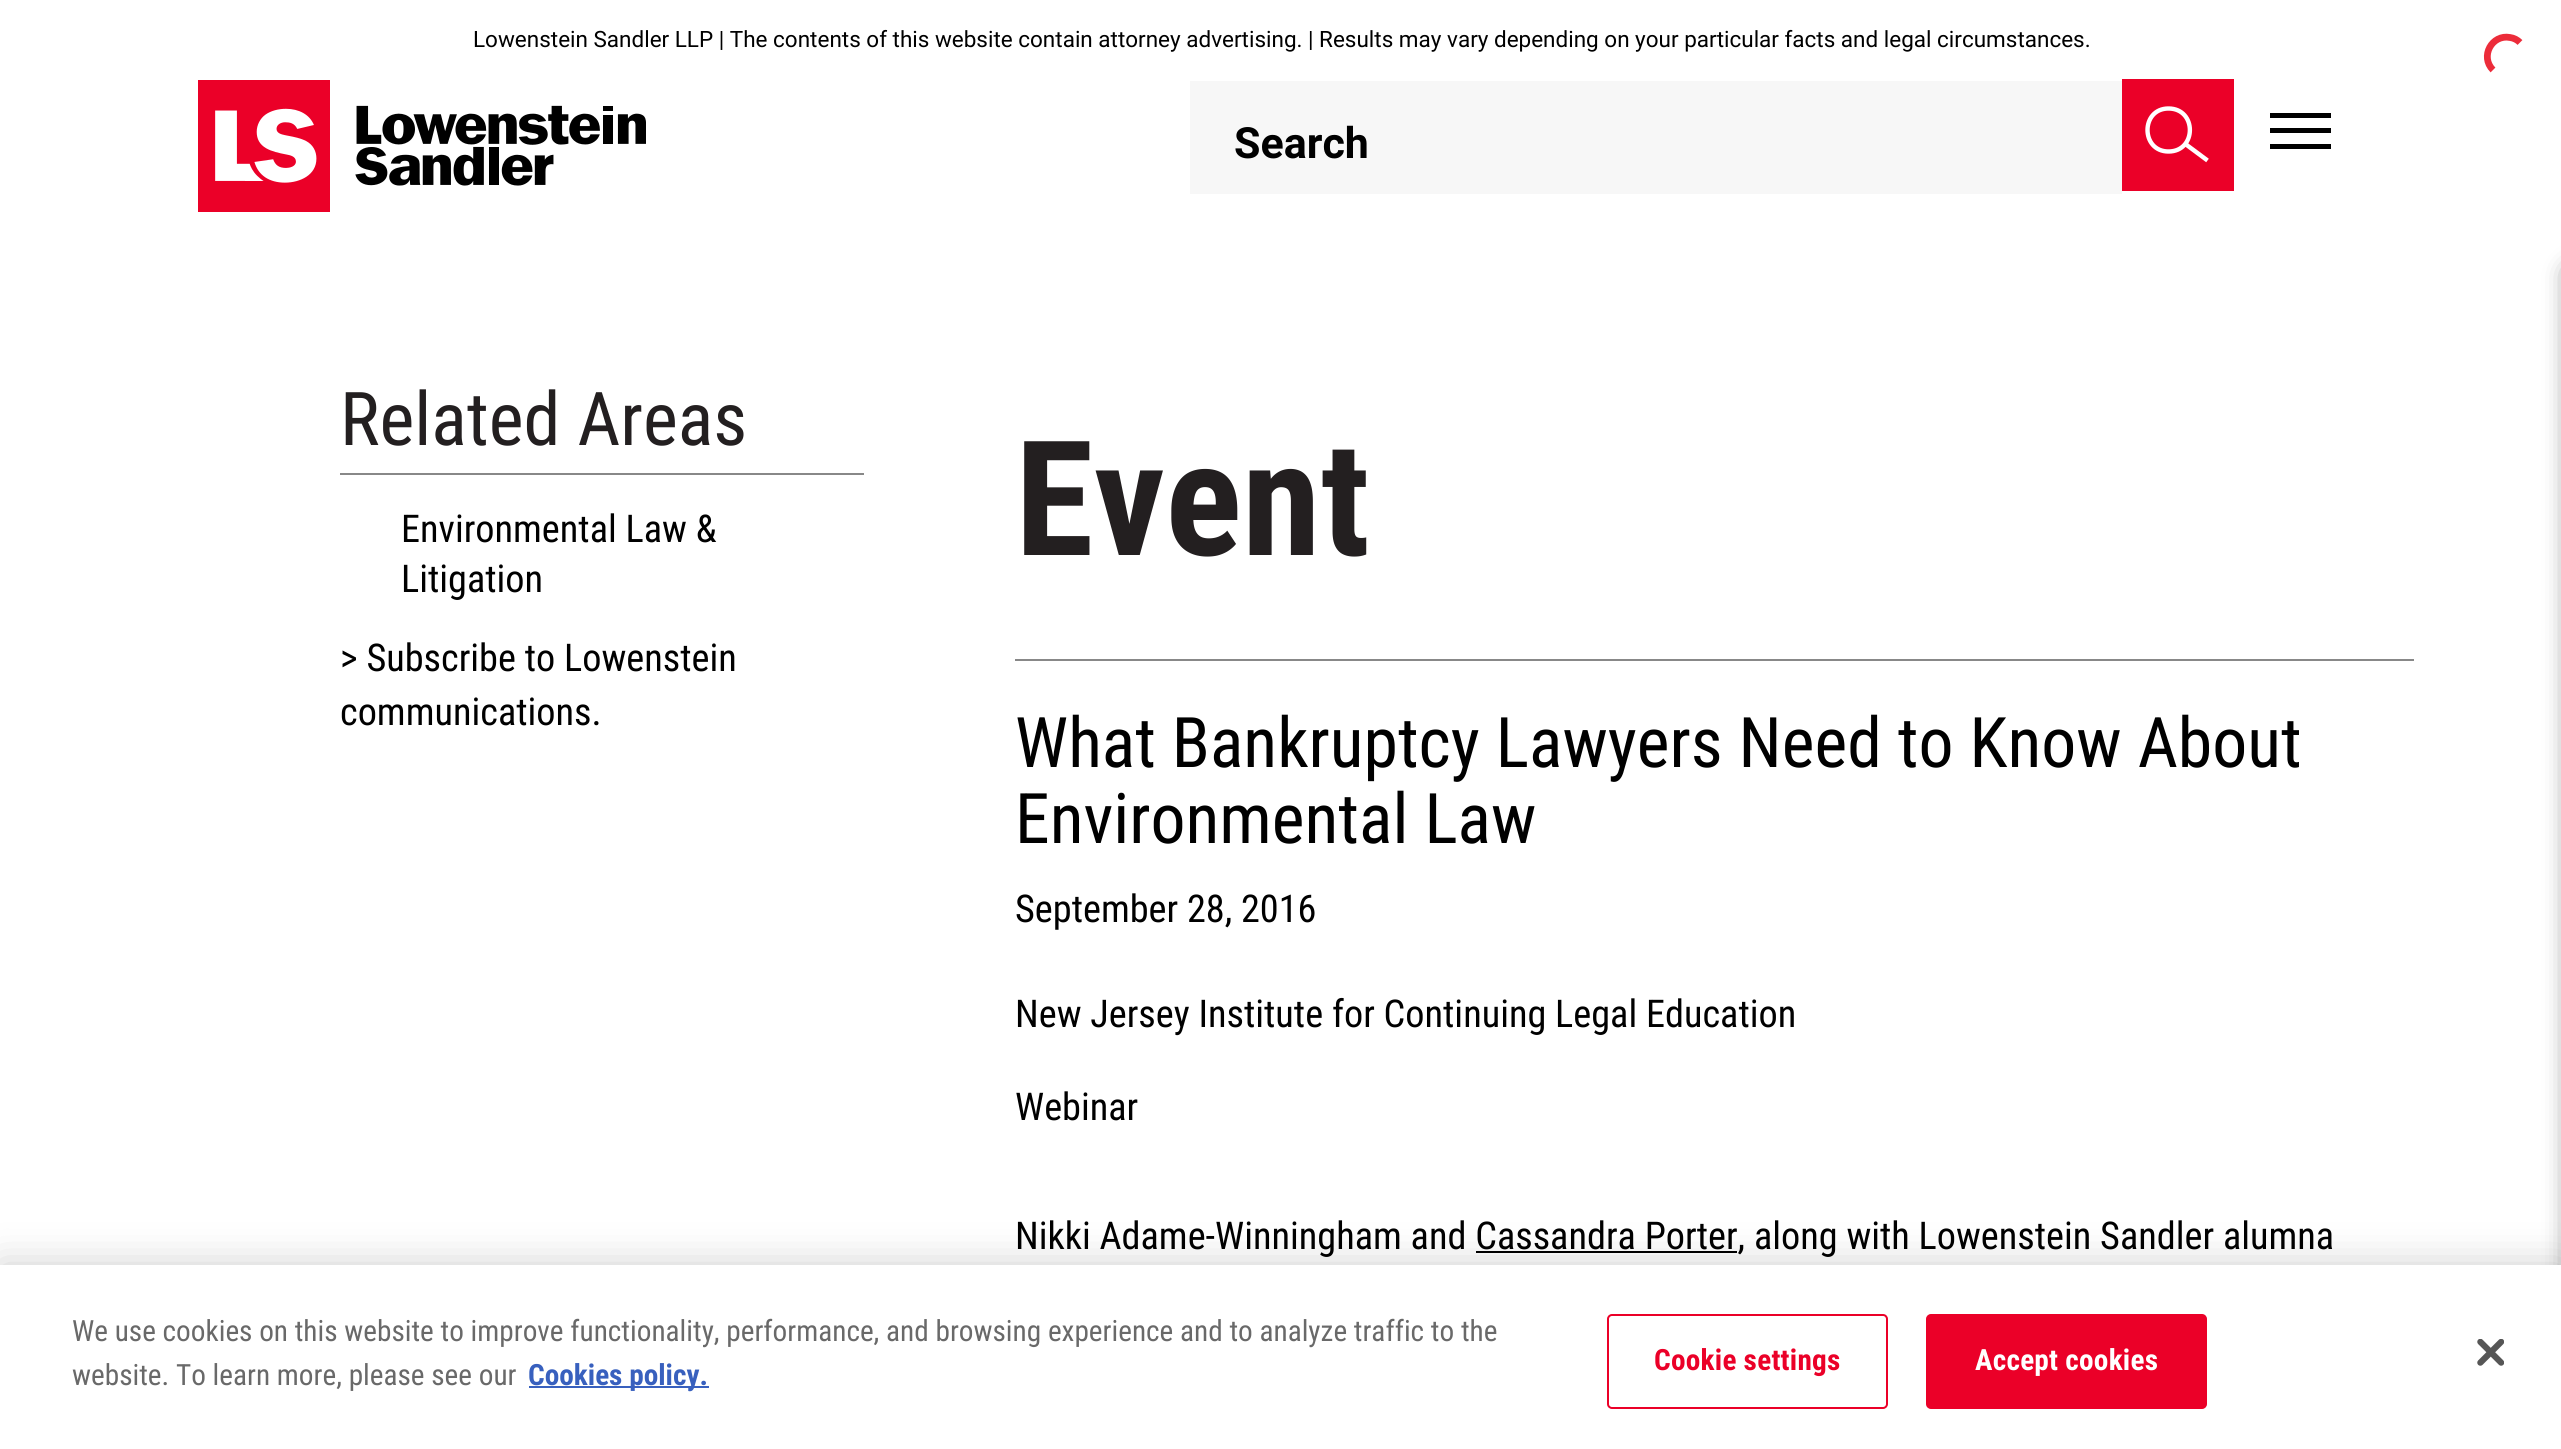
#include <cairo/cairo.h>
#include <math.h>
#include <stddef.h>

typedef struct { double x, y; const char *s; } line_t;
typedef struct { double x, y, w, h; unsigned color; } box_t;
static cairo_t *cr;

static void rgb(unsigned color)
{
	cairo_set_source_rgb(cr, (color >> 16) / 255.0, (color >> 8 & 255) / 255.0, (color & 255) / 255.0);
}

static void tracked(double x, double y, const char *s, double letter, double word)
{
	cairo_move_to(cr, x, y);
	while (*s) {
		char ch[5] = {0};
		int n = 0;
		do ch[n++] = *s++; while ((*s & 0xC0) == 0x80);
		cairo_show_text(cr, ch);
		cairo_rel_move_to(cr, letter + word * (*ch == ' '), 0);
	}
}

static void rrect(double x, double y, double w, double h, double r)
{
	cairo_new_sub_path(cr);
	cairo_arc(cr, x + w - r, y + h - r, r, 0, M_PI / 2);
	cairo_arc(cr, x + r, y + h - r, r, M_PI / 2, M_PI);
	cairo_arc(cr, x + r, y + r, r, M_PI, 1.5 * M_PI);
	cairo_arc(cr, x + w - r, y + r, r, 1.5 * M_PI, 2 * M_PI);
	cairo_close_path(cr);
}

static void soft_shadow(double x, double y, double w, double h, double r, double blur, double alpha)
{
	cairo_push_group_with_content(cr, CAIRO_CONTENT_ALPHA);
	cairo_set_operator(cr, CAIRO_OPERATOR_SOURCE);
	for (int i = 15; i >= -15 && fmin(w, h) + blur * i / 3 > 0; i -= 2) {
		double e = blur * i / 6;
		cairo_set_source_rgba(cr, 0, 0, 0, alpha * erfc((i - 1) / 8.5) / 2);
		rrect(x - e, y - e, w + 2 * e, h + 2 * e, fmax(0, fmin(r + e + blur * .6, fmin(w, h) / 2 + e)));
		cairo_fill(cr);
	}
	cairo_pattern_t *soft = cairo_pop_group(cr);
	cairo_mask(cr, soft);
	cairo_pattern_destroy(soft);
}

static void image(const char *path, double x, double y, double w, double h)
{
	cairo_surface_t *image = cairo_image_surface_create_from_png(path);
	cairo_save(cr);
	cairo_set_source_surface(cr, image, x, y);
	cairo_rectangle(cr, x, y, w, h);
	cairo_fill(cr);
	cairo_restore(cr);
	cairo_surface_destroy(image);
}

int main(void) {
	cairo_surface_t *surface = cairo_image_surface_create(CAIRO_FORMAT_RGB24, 2561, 1449);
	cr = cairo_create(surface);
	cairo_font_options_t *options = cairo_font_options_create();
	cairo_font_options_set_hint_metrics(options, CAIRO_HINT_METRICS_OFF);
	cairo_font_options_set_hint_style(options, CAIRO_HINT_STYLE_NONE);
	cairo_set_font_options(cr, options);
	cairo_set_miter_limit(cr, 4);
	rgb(0xffffff);
	cairo_paint(cr);
	image("img/1.png", 198, 80, 448, 132);
	rgb(0xf7f7f7);
	cairo_rectangle(cr, 1190, 81, 932, 113);
	cairo_fill(cr);
	rgb(0xeb0028);
	cairo_rectangle(cr, 2122, 79, 112, 112);
	cairo_fill(cr);
	cairo_new_path(cr);
	cairo_move_to(cr, 2168.5, 151.5);
	cairo_curve_to(cr, 2197, 151.5, 2197, 108.5, 2168.5, 108.5);
	cairo_curve_to(cr, 2140.5, 108.5, 2140.5, 151.5, 2168.5, 151.5);
	cairo_close_path(cr);
	rgb(0xffffff);
	cairo_set_line_width(cr, 4.4);
	cairo_stroke(cr);
	cairo_new_path(cr);
	cairo_move_to(cr, 2186, 144.5);
	cairo_line_to(cr, 2207.5, 160.5);
	cairo_stroke(cr);
	{
		static const box_t items[] = {
			{2270, 113, 61, 5, 0x000000},
			{2270, 144, 61, 5, 0x000000},
			{2270, 128, 61, 5, 0x000000},
			{340, 473, 524, 2, 0x888888},
			{1015, 659, 1399, 2, 0x888888},
			{1476, 1251, 261, 2, 0x000000},
		};
		for (size_t i = 0; i < sizeof items / sizeof *items; i++) {
			rgb(items[i].color);
			cairo_rectangle(cr, items[i].x, items[i].y, items[i].w, items[i].h);
			cairo_fill(cr);
		}
	}
	rgb(0x000000);
	soft_shadow(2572, 272, 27, 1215, 0, 12.5, 0.75);
	cairo_new_path(cr);
	cairo_move_to(cr, 2493, 70);
	cairo_curve_to(cr, 2479.5, 56.5, 2492, 34, 2510, 37.5);
	cairo_curve_to(cr, 2514, 38, 2517.5, 40, 2520, 42.5);
	rgb(0xec2c3a);
	cairo_set_line_width(cr, 6.8);
	cairo_stroke(cr);
	rgb(0x000000);
	soft_shadow(0, 1265, 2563, 184, 0, 20, 0.2);
	rgb(0xffffff);
	cairo_rectangle(cr, 0, 1265, 2561, 184);
	cairo_fill(cr);
	rgb(0x3860be);
	cairo_rectangle(cr, 529, 1386, 180, 2);
	cairo_fill(cr);
	rrect(1608, 1315, 279, 93, 4);
	rgb(0xeb0028);
	cairo_set_line_width(cr, 2);
	cairo_stroke(cr);
	rrect(1927, 1315, 279, 93, 4);
	cairo_fill_preserve(cr);
	cairo_stroke(cr);
	image("img/2.png", 2477, 1339, 27, 27);
	cairo_select_font_face(cr, "Roboto", CAIRO_FONT_SLANT_NORMAL, CAIRO_FONT_WEIGHT_NORMAL);
	cairo_set_font_size(cr, 22.5);
	rgb(0x000000);
	cairo_move_to(cr, 473, 47);
	cairo_show_text(cr, "Lowenstein Sandler LLP | The contents of this website contain attorney advertising. | Results may vary depending on your particular facts and legal circumstances.");
	cairo_select_font_face(cr, "Roboto", CAIRO_FONT_SLANT_NORMAL, CAIRO_FONT_WEIGHT_BOLD);
	cairo_set_font_size(cr, 43);
	cairo_move_to(cr, 1234, 158);
	cairo_show_text(cr, "Search");
	cairo_select_font_face(cr, "Roboto Condensed", CAIRO_FONT_SLANT_NORMAL, CAIRO_FONT_WEIGHT_NORMAL);
	cairo_set_font_size(cr, 74.25);
	rgb(0x231f20);
	cairo_move_to(cr, 340, 445);
	cairo_show_text(cr, "Related Areas");
	cairo_set_font_size(cr, 38.25);
	rgb(0x000000);
	{
		static const line_t items[] = {
			{401, 542, "Environmental Law &"},
			{401, 592, "Litigation"},
			{340, 671, "> Subscribe to Lowenstein"},
			{340, 725, "communications."},
		};
		for (size_t i = 0; i < sizeof items / sizeof *items; i++) {
			cairo_move_to(cr, items[i].x, items[i].y);
			cairo_show_text(cr, items[i].s);
		}
	}
	cairo_select_font_face(cr, "Roboto Condensed", CAIRO_FONT_SLANT_NORMAL, CAIRO_FONT_WEIGHT_BOLD);
	cairo_set_font_size(cr, 160);
	rgb(0x231f20);
	cairo_move_to(cr, 1015, 555);
	cairo_show_text(cr, "Event");
	cairo_select_font_face(cr, "Roboto Condensed", CAIRO_FONT_SLANT_NORMAL, CAIRO_FONT_WEIGHT_NORMAL);
	cairo_set_font_size(cr, 69.75);
	rgb(0x000000);
	cairo_move_to(cr, 1015, 767);
	cairo_show_text(cr, "What Bankruptcy Lawyers Need to Know About");
	cairo_move_to(cr, 1015, 843);
	cairo_show_text(cr, "Environmental Law");
	cairo_set_font_size(cr, 38.25);
	{
		static const line_t items[] = {
			{1015, 922, "September 28, 2016"},
			{1015, 1027, "New Jersey Institute for Continuing Legal Education"},
			{1015, 1120, "Webinar"},
			{1015, 1249, "Nikki Adame-Winningham and Cassandra Porter, along with Lowenstein Sandler alumna"},
		};
		for (size_t i = 0; i < sizeof items / sizeof *items; i++) {
			cairo_move_to(cr, items[i].x, items[i].y);
			cairo_show_text(cr, items[i].s);
		}
	}
	cairo_set_font_size(cr, 29.25);
	rgb(0x696969);
	cairo_move_to(cr, 72, 1341);
	cairo_show_text(cr, "We use cookies on this website to improve functionality, performance, and browsing experience and to analyze traffic to the");
	cairo_move_to(cr, 72, 1385);
	cairo_show_text(cr, "website. To learn more, please see our");
	cairo_select_font_face(cr, "Roboto Condensed", CAIRO_FONT_SLANT_NORMAL, CAIRO_FONT_WEIGHT_BOLD);
	rgb(0x3860be);
	cairo_move_to(cr, 528, 1385);
	cairo_show_text(cr, "Cookies policy.");
	rgb(0xeb0028);
	tracked(1654, 1370, "Cookie settings", 0.25, 0);
	rgb(0xffffff);
	tracked(1975, 1370, "Accept cookies", 0.25, 0);
	cairo_surface_write_to_png(surface, "page.png");
	cairo_font_options_destroy(options);
	cairo_destroy(cr);
	cairo_surface_destroy(surface);
	return 0;
}
